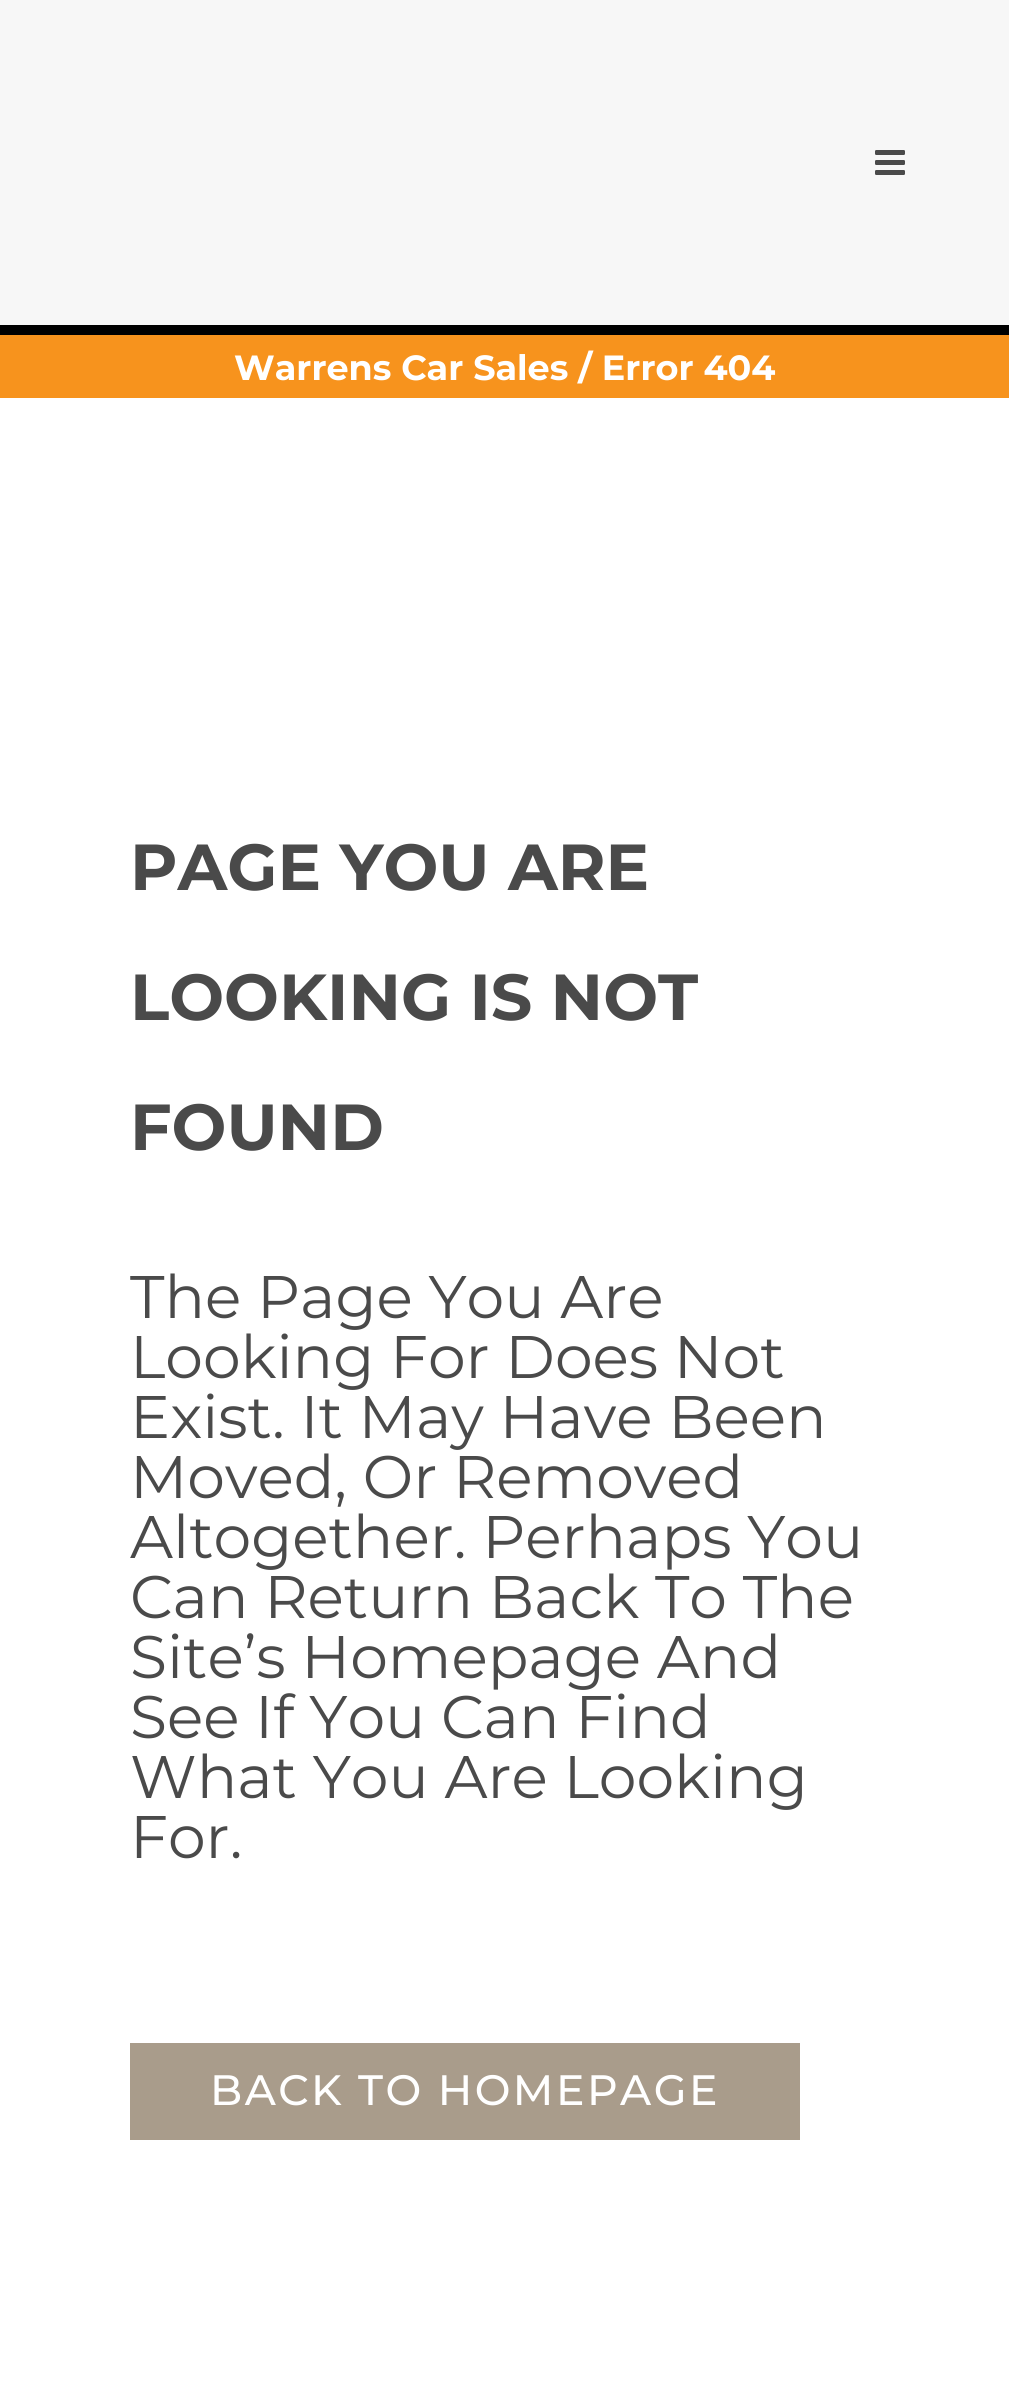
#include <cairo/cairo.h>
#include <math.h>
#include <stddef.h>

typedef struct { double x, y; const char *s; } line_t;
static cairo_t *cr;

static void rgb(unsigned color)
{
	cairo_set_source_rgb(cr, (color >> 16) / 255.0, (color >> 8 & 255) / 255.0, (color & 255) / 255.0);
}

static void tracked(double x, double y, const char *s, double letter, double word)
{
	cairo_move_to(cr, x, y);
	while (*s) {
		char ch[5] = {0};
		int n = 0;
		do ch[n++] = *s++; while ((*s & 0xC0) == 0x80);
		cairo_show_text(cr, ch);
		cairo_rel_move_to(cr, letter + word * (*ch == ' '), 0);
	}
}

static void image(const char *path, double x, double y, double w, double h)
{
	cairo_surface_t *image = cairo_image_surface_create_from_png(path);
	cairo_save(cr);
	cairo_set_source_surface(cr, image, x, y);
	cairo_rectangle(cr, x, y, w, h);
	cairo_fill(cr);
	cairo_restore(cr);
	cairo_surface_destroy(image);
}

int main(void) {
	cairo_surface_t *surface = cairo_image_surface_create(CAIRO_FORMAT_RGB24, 1009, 2399);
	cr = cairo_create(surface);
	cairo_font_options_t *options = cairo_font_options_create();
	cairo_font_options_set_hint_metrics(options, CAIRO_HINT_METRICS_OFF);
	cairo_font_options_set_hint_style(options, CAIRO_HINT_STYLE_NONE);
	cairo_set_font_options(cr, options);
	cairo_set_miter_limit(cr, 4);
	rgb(0xffffff);
	cairo_paint(cr);
	rgb(0xf7f7f7);
	cairo_rectangle(cr, 0, 0, 1009, 325);
	cairo_fill(cr);
	rgb(0x000000);
	cairo_rectangle(cr, 0, 325, 1009, 10);
	cairo_fill(cr);
	image("img/1.png", 875, 150, 30, 25);
	rgb(0xf7931d);
	cairo_rectangle(cr, 0, 335, 1009, 63);
	cairo_fill(cr);
	rgb(0xa99c8b);
	cairo_rectangle(cr, 130, 2043, 670, 97);
	cairo_fill(cr);
	cairo_select_font_face(cr, "Montserrat", CAIRO_FONT_SLANT_NORMAL, CAIRO_FONT_WEIGHT_BOLD);
	cairo_set_font_size(cr, 35);
	rgb(0xffffff);
	cairo_move_to(cr, 234, 380);
	cairo_show_text(cr, "Warrens Car Sales / Error 404");
	cairo_set_font_size(cr, 65);
	rgb(0x4a4a4a);
	{
		static const line_t items[] = {
			{130, 890, "PAGE YOU ARE"},
			{130, 1020, "LOOKING IS NOT"},
			{130, 1150, "FOUND"},
		};
		for (size_t i = 0; i < sizeof items / sizeof *items; i++) {
			cairo_move_to(cr, items[i].x, items[i].y);
			cairo_show_text(cr, items[i].s);
		}
	}
	cairo_select_font_face(cr, "Montserrat", CAIRO_FONT_SLANT_NORMAL, CAIRO_FONT_WEIGHT_NORMAL);
	cairo_set_font_size(cr, 60);
	{
		static const line_t items[] = {
			{130, 1318, "The Page You Are"},
			{130, 1378, "Looking For Does Not"},
			{130, 1438, "Exist. It May Have Been"},
			{130, 1498, "Moved, Or Removed"},
			{130, 1558, "Altogether. Perhaps You"},
			{130, 1618, "Can Return Back To The"},
			{130, 1678, "Site’s Homepage And"},
			{130, 1738, "See If You Can Find"},
			{130, 1798, "What You Are Looking"},
			{130, 1858, "For."},
		};
		for (size_t i = 0; i < sizeof items / sizeof *items; i++) {
			cairo_move_to(cr, items[i].x, items[i].y);
			cairo_show_text(cr, items[i].s);
		}
	}
	cairo_select_font_face(cr, "Montserrat Medium", CAIRO_FONT_SLANT_NORMAL, CAIRO_FONT_WEIGHT_NORMAL);
	cairo_set_font_size(cr, 42.5);
	rgb(0xffffff);
	tracked(210, 2105, "BACK TO HOMEPAGE", 2.5, 0);
	cairo_surface_write_to_png(surface, "page.png");
	cairo_font_options_destroy(options);
	cairo_destroy(cr);
	cairo_surface_destroy(surface);
	return 0;
}
